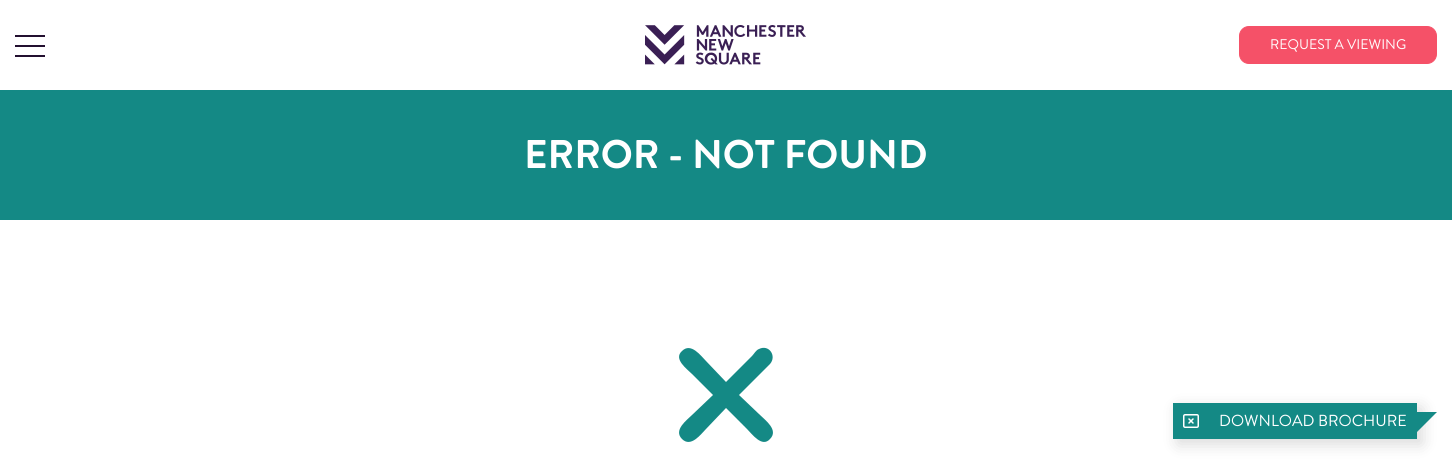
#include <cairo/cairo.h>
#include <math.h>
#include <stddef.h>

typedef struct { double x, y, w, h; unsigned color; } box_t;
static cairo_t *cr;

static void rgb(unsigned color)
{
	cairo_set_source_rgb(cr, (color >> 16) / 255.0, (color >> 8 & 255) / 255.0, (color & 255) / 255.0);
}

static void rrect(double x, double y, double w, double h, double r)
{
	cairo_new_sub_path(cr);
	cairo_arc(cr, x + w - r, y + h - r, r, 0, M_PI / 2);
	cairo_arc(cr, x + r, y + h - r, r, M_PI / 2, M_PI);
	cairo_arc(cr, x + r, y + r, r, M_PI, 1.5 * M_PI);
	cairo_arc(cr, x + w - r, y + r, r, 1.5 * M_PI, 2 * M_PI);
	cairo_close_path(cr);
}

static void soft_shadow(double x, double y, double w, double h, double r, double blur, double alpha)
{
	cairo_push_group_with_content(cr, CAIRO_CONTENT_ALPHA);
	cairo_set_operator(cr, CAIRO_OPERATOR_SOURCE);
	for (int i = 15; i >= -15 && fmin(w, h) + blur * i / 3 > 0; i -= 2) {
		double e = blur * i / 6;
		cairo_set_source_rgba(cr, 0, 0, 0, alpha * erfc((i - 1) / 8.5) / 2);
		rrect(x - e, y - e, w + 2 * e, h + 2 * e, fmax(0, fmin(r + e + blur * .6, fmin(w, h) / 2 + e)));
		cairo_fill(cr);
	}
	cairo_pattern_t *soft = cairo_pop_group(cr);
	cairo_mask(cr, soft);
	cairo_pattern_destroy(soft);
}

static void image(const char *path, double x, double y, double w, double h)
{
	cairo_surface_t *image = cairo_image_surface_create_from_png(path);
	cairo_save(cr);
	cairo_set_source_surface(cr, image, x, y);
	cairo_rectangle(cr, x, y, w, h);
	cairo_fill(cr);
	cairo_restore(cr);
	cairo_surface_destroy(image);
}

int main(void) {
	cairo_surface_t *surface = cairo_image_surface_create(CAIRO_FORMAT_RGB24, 1452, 464);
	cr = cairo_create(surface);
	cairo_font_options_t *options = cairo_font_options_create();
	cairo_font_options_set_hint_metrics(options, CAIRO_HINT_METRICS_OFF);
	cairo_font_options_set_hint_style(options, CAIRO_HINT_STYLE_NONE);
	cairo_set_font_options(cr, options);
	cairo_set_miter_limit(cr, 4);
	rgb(0xffffff);
	cairo_paint(cr);
	{
		static const box_t items[] = {
			{15, 35, 30, 2, 0x231030},
			{15, 45, 30, 2, 0x231030},
			{15, 55, 30, 2, 0x231030},
		};
		for (size_t i = 0; i < sizeof items / sizeof *items; i++) {
			rgb(items[i].color);
			cairo_rectangle(cr, items[i].x, items[i].y, items[i].w, items[i].h);
			cairo_fill(cr);
		}
	}
	image("img/1.png", 645, 25, 161, 40);
	rgb(0xf55168);
	rrect(1239.5, 26.5, 197, 37, 9.5);
	cairo_fill_preserve(cr);
	cairo_set_line_width(cr, 1);
	cairo_stroke(cr);
	rgb(0x148985);
	cairo_rectangle(cr, 0, 90, 1452, 130);
	cairo_fill(cr);
	cairo_new_path(cr);
	cairo_move_to(cr, 770, 364);
	cairo_curve_to(cr, 777, 356, 769, 344, 759, 349);
	cairo_curve_to(cr, 756, 350, 754, 354, 752, 356);
	cairo_line_to(cr, 726, 382);
	cairo_line_to(cr, 706, 361);
	cairo_curve_to(cr, 701, 356, 691, 342, 682, 351);
	cairo_curve_to(cr, 673, 359, 687, 369, 692, 374);
	cairo_line_to(cr, 713, 395);
	cairo_line_to(cr, 692, 415);
	cairo_curve_to(cr, 687, 420, 673, 430, 682, 439);
	cairo_curve_to(cr, 691, 448, 701, 434, 706, 429);
	cairo_line_to(cr, 726, 408);
	cairo_line_to(cr, 747, 429);
	cairo_curve_to(cr, 752, 434, 762, 448, 770, 439);
	cairo_curve_to(cr, 779, 430, 765, 420, 760, 415);
	cairo_line_to(cr, 739, 395);
	cairo_close_path(cr);
	cairo_fill(cr);
	rgb(0x000000);
	soft_shadow(1178, 408, 244, 36, 0, 8, 0.15);
	rgb(0x148985);
	cairo_rectangle(cr, 1173, 403, 244, 36);
	cairo_fill(cr);
	image("img/2.png", 1183, 414, 16, 14);
	cairo_new_path(cr);
	cairo_move_to(cr, 1417, 412);
	cairo_line_to(cr, 1437, 412);
	cairo_line_to(cr, 1417, 432);
	cairo_close_path(cr);
	cairo_fill(cr);
	cairo_select_font_face(cr, "Brandon Grotesque", CAIRO_FONT_SLANT_NORMAL, CAIRO_FONT_WEIGHT_NORMAL);
	cairo_set_font_size(cr, 14);
	rgb(0xffffff);
	cairo_move_to(cr, 1270, 49);
	cairo_show_text(cr, "REQUEST A VIEWING");
	cairo_select_font_face(cr, "Brandon Grotesque", CAIRO_FONT_SLANT_NORMAL, CAIRO_FONT_WEIGHT_BOLD);
	cairo_set_font_size(cr, 40);
	cairo_move_to(cr, 524, 168);
	cairo_show_text(cr, "ERROR - NOT FOUND");
	cairo_select_font_face(cr, "Brandon Grotesque", CAIRO_FONT_SLANT_NORMAL, CAIRO_FONT_WEIGHT_NORMAL);
	cairo_set_font_size(cr, 16);
	cairo_move_to(cr, 1219, 426);
	cairo_show_text(cr, "DOWNLOAD BROCHURE");
	cairo_surface_write_to_png(surface, "page.png");
	cairo_font_options_destroy(options);
	cairo_destroy(cr);
	cairo_surface_destroy(surface);
	return 0;
}
